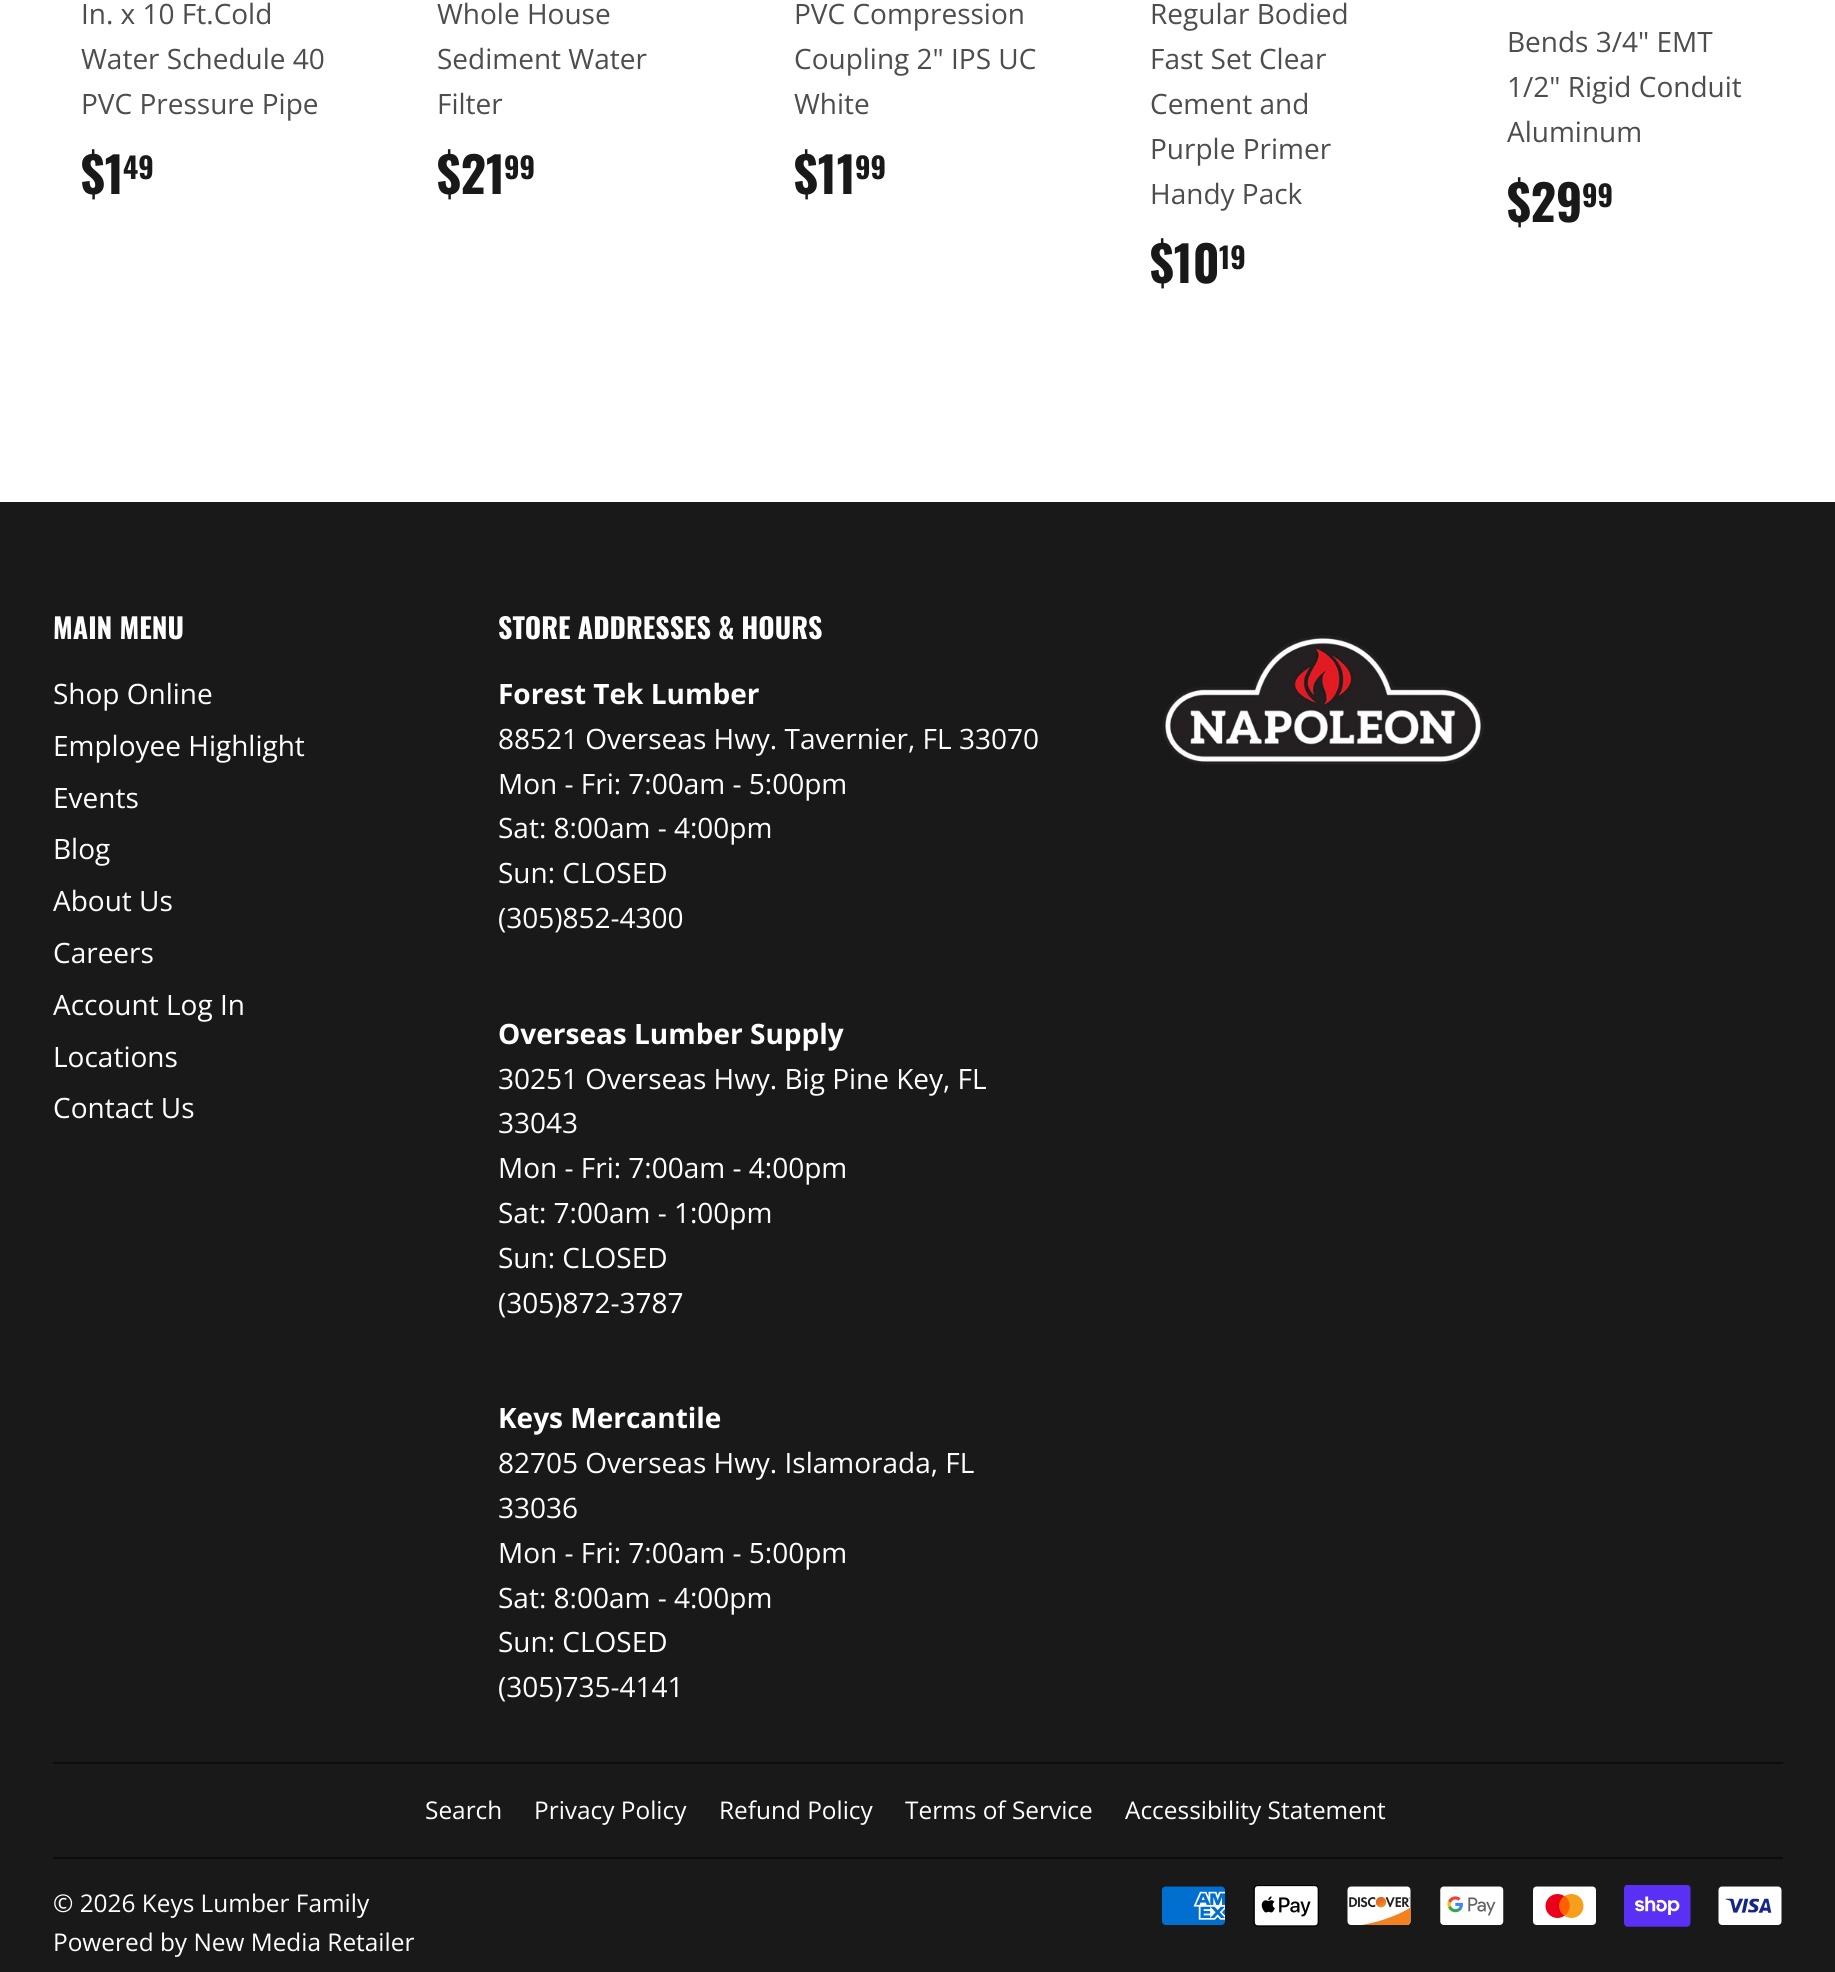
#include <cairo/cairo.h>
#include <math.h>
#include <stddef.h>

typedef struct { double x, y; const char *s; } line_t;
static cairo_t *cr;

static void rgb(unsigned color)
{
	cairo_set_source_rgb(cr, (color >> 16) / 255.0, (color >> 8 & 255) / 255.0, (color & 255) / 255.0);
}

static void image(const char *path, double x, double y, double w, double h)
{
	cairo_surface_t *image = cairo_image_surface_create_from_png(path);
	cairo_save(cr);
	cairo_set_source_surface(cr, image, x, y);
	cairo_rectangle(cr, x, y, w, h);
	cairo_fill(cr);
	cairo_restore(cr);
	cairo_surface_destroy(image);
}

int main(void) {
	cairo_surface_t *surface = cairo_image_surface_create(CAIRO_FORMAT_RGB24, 1835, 1972);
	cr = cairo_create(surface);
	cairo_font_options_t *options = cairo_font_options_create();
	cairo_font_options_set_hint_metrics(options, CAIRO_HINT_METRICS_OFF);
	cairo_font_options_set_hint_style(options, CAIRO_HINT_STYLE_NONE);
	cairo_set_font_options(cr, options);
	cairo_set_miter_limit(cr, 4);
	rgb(0xffffff);
	cairo_paint(cr);
	rgb(0x191919);
	cairo_rectangle(cr, 0, 502, 1835, 1470);
	cairo_fill(cr);
	image("img/1.png", 1162, 635, 322, 130);
	rgb(0x0c0c0c);
	cairo_rectangle(cr, 53, 1762, 1730, 2);
	cairo_fill(cr);
	cairo_rectangle(cr, 53, 1857, 1730, 2);
	cairo_fill(cr);
	image("img/2.png", 1162, 1886, 63, 39);
	image("img/3.png", 1253, 1885, 66, 42);
	image("img/4.png", 1347, 1886, 64, 39);
	image("img/5.png", 1440, 1886, 64, 39);
	image("img/6.png", 1533, 1886, 63, 39);
	image("img/7.png", 1624, 1885, 67, 42);
	image("img/8.png", 1718, 1886, 64, 39);
	cairo_select_font_face(cr, "Open Sans", CAIRO_FONT_SLANT_NORMAL, CAIRO_FONT_WEIGHT_NORMAL);
	cairo_set_font_size(cr, 28);
	rgb(0x4d4d4d);
	{
		static const line_t items[] = {
			{81, 24, "In. x 10 Ft.Cold"},
			{81, 69, "Water Schedule 40"},
			{81, 114, "PVC Pressure Pipe"},
		};
		for (size_t i = 0; i < sizeof items / sizeof *items; i++) {
			cairo_move_to(cr, items[i].x, items[i].y);
			cairo_show_text(cr, items[i].s);
		}
	}
	cairo_select_font_face(cr, "Oswald", CAIRO_FONT_SLANT_NORMAL, CAIRO_FONT_WEIGHT_BOLD);
	cairo_set_font_size(cr, 49);
	rgb(0x191919);
	cairo_move_to(cr, 81, 194);
	cairo_show_text(cr, "$1");
	cairo_set_font_size(cr, 29);
	cairo_move_to(cr, 123, 179);
	cairo_show_text(cr, "49");
	cairo_select_font_face(cr, "Open Sans", CAIRO_FONT_SLANT_NORMAL, CAIRO_FONT_WEIGHT_NORMAL);
	cairo_set_font_size(cr, 28);
	rgb(0x4d4d4d);
	{
		static const line_t items[] = {
			{437, 24, "Whole House"},
			{437, 69, "Sediment Water"},
			{437, 114, "Filter"},
		};
		for (size_t i = 0; i < sizeof items / sizeof *items; i++) {
			cairo_move_to(cr, items[i].x, items[i].y);
			cairo_show_text(cr, items[i].s);
		}
	}
	cairo_select_font_face(cr, "Oswald", CAIRO_FONT_SLANT_NORMAL, CAIRO_FONT_WEIGHT_BOLD);
	cairo_set_font_size(cr, 49);
	rgb(0x191919);
	cairo_move_to(cr, 437, 194);
	cairo_show_text(cr, "$21");
	cairo_set_font_size(cr, 29);
	cairo_move_to(cr, 504, 179);
	cairo_show_text(cr, "99");
	cairo_select_font_face(cr, "Open Sans", CAIRO_FONT_SLANT_NORMAL, CAIRO_FONT_WEIGHT_NORMAL);
	cairo_set_font_size(cr, 28);
	rgb(0x4d4d4d);
	{
		static const line_t items[] = {
			{794, 24, "PVC Compression"},
			{794, 69, "Coupling 2\" IPS UC"},
			{794, 114, "White"},
		};
		for (size_t i = 0; i < sizeof items / sizeof *items; i++) {
			cairo_move_to(cr, items[i].x, items[i].y);
			cairo_show_text(cr, items[i].s);
		}
	}
	cairo_select_font_face(cr, "Oswald", CAIRO_FONT_SLANT_NORMAL, CAIRO_FONT_WEIGHT_BOLD);
	cairo_set_font_size(cr, 49);
	rgb(0x191919);
	cairo_move_to(cr, 794, 194);
	cairo_show_text(cr, "$11");
	cairo_set_font_size(cr, 29);
	cairo_move_to(cr, 855, 179);
	cairo_show_text(cr, "99");
	cairo_select_font_face(cr, "Open Sans", CAIRO_FONT_SLANT_NORMAL, CAIRO_FONT_WEIGHT_NORMAL);
	cairo_set_font_size(cr, 28);
	rgb(0x4d4d4d);
	{
		static const line_t items[] = {
			{1150, 24, "Regular Bodied"},
			{1150, 69, "Fast Set Clear"},
			{1150, 114, "Cement and"},
			{1150, 159, "Purple Primer"},
			{1150, 204, "Handy Pack"},
		};
		for (size_t i = 0; i < sizeof items / sizeof *items; i++) {
			cairo_move_to(cr, items[i].x, items[i].y);
			cairo_show_text(cr, items[i].s);
		}
	}
	cairo_select_font_face(cr, "Oswald", CAIRO_FONT_SLANT_NORMAL, CAIRO_FONT_WEIGHT_BOLD);
	cairo_set_font_size(cr, 49);
	rgb(0x191919);
	cairo_move_to(cr, 1150, 283);
	cairo_show_text(cr, "$10");
	cairo_set_font_size(cr, 29);
	cairo_move_to(cr, 1219, 269);
	cairo_show_text(cr, "19");
	cairo_select_font_face(cr, "Open Sans", CAIRO_FONT_SLANT_NORMAL, CAIRO_FONT_WEIGHT_NORMAL);
	cairo_set_font_size(cr, 28);
	rgb(0x4d4d4d);
	{
		static const line_t items[] = {
			{1507, 52, "Bends 3/4\" EMT"},
			{1507, 97, "1/2\" Rigid Conduit"},
			{1507, 142, "Aluminum"},
		};
		for (size_t i = 0; i < sizeof items / sizeof *items; i++) {
			cairo_move_to(cr, items[i].x, items[i].y);
			cairo_show_text(cr, items[i].s);
		}
	}
	cairo_select_font_face(cr, "Oswald", CAIRO_FONT_SLANT_NORMAL, CAIRO_FONT_WEIGHT_BOLD);
	cairo_set_font_size(cr, 49);
	rgb(0x191919);
	cairo_move_to(cr, 1507, 222);
	cairo_show_text(cr, "$29");
	cairo_set_font_size(cr, 29);
	cairo_move_to(cr, 1582, 207);
	cairo_show_text(cr, "99");
	cairo_set_font_size(cr, 28);
	rgb(0xffffff);
	cairo_move_to(cr, 53, 639);
	cairo_show_text(cr, "MAIN MENU");
	cairo_select_font_face(cr, "Open Sans", CAIRO_FONT_SLANT_NORMAL, CAIRO_FONT_WEIGHT_NORMAL);
	{
		static const line_t items[] = {
			{53, 704, "Shop Online"},
			{53, 756, "Employee Highlight"},
			{53, 808, "Events"},
			{53, 859, "Blog"},
			{53, 911, "About Us"},
			{53, 963, "Careers"},
			{53, 1015, "Account Log In"},
			{53, 1067, "Locations"},
			{53, 1118, "Contact Us"},
		};
		for (size_t i = 0; i < sizeof items / sizeof *items; i++) {
			cairo_move_to(cr, items[i].x, items[i].y);
			cairo_show_text(cr, items[i].s);
		}
	}
	cairo_select_font_face(cr, "Oswald", CAIRO_FONT_SLANT_NORMAL, CAIRO_FONT_WEIGHT_BOLD);
	cairo_move_to(cr, 498, 639);
	cairo_show_text(cr, "STORE ADDRESSES & HOURS");
	cairo_select_font_face(cr, "Open Sans", CAIRO_FONT_SLANT_NORMAL, CAIRO_FONT_WEIGHT_BOLD);
	cairo_move_to(cr, 498, 704);
	cairo_show_text(cr, "Forest Tek Lumber");
	cairo_select_font_face(cr, "Open Sans", CAIRO_FONT_SLANT_NORMAL, CAIRO_FONT_WEIGHT_NORMAL);
	{
		static const line_t items[] = {
			{498, 749, "88521 Overseas Hwy. Tavernier, FL 33070"},
			{498, 794, "Mon - Fri: 7:00am - 5:00pm"},
			{498, 838, "Sat: 8:00am - 4:00pm"},
			{498, 883, "Sun: CLOSED"},
			{498, 928, "(305)852-4300"},
		};
		for (size_t i = 0; i < sizeof items / sizeof *items; i++) {
			cairo_move_to(cr, items[i].x, items[i].y);
			cairo_show_text(cr, items[i].s);
		}
	}
	cairo_select_font_face(cr, "Open Sans", CAIRO_FONT_SLANT_NORMAL, CAIRO_FONT_WEIGHT_BOLD);
	cairo_move_to(cr, 498, 1044);
	cairo_show_text(cr, "Overseas Lumber Supply");
	cairo_select_font_face(cr, "Open Sans", CAIRO_FONT_SLANT_NORMAL, CAIRO_FONT_WEIGHT_NORMAL);
	{
		static const line_t items[] = {
			{498, 1089, "30251 Overseas Hwy. Big Pine Key, FL"},
			{498, 1133, "33043"},
			{498, 1178, "Mon - Fri: 7:00am - 4:00pm"},
			{498, 1223, "Sat: 7:00am - 1:00pm"},
			{498, 1268, "Sun: CLOSED"},
			{498, 1313, "(305)872-3787"},
		};
		for (size_t i = 0; i < sizeof items / sizeof *items; i++) {
			cairo_move_to(cr, items[i].x, items[i].y);
			cairo_show_text(cr, items[i].s);
		}
	}
	cairo_select_font_face(cr, "Open Sans", CAIRO_FONT_SLANT_NORMAL, CAIRO_FONT_WEIGHT_BOLD);
	cairo_move_to(cr, 498, 1428);
	cairo_show_text(cr, "Keys Mercantile");
	cairo_select_font_face(cr, "Open Sans", CAIRO_FONT_SLANT_NORMAL, CAIRO_FONT_WEIGHT_NORMAL);
	{
		static const line_t items[] = {
			{498, 1473, "82705 Overseas Hwy. Islamorada, FL"},
			{498, 1518, "33036"},
			{498, 1563, "Mon - Fri: 7:00am - 5:00pm"},
			{498, 1608, "Sat: 8:00am - 4:00pm"},
			{498, 1652, "Sun: CLOSED"},
			{498, 1697, "(305)735-4141"},
		};
		for (size_t i = 0; i < sizeof items / sizeof *items; i++) {
			cairo_move_to(cr, items[i].x, items[i].y);
			cairo_show_text(cr, items[i].s);
		}
	}
	cairo_set_font_size(cr, 24.4);
	{
		static const line_t items[] = {
			{425, 1819, "Search"},
			{534, 1819, "Privacy Policy"},
			{719, 1819, "Refund Policy"},
			{905, 1819, "Terms of Service"},
			{1125, 1819, "Accessibility Statement"},
			{53, 1912, "© 2026 Keys Lumber Family"},
			{53, 1951, "Powered by New Media Retailer"},
		};
		for (size_t i = 0; i < sizeof items / sizeof *items; i++) {
			cairo_move_to(cr, items[i].x, items[i].y);
			cairo_show_text(cr, items[i].s);
		}
	}
	cairo_surface_write_to_png(surface, "page.png");
	cairo_font_options_destroy(options);
	cairo_destroy(cr);
	cairo_surface_destroy(surface);
	return 0;
}
